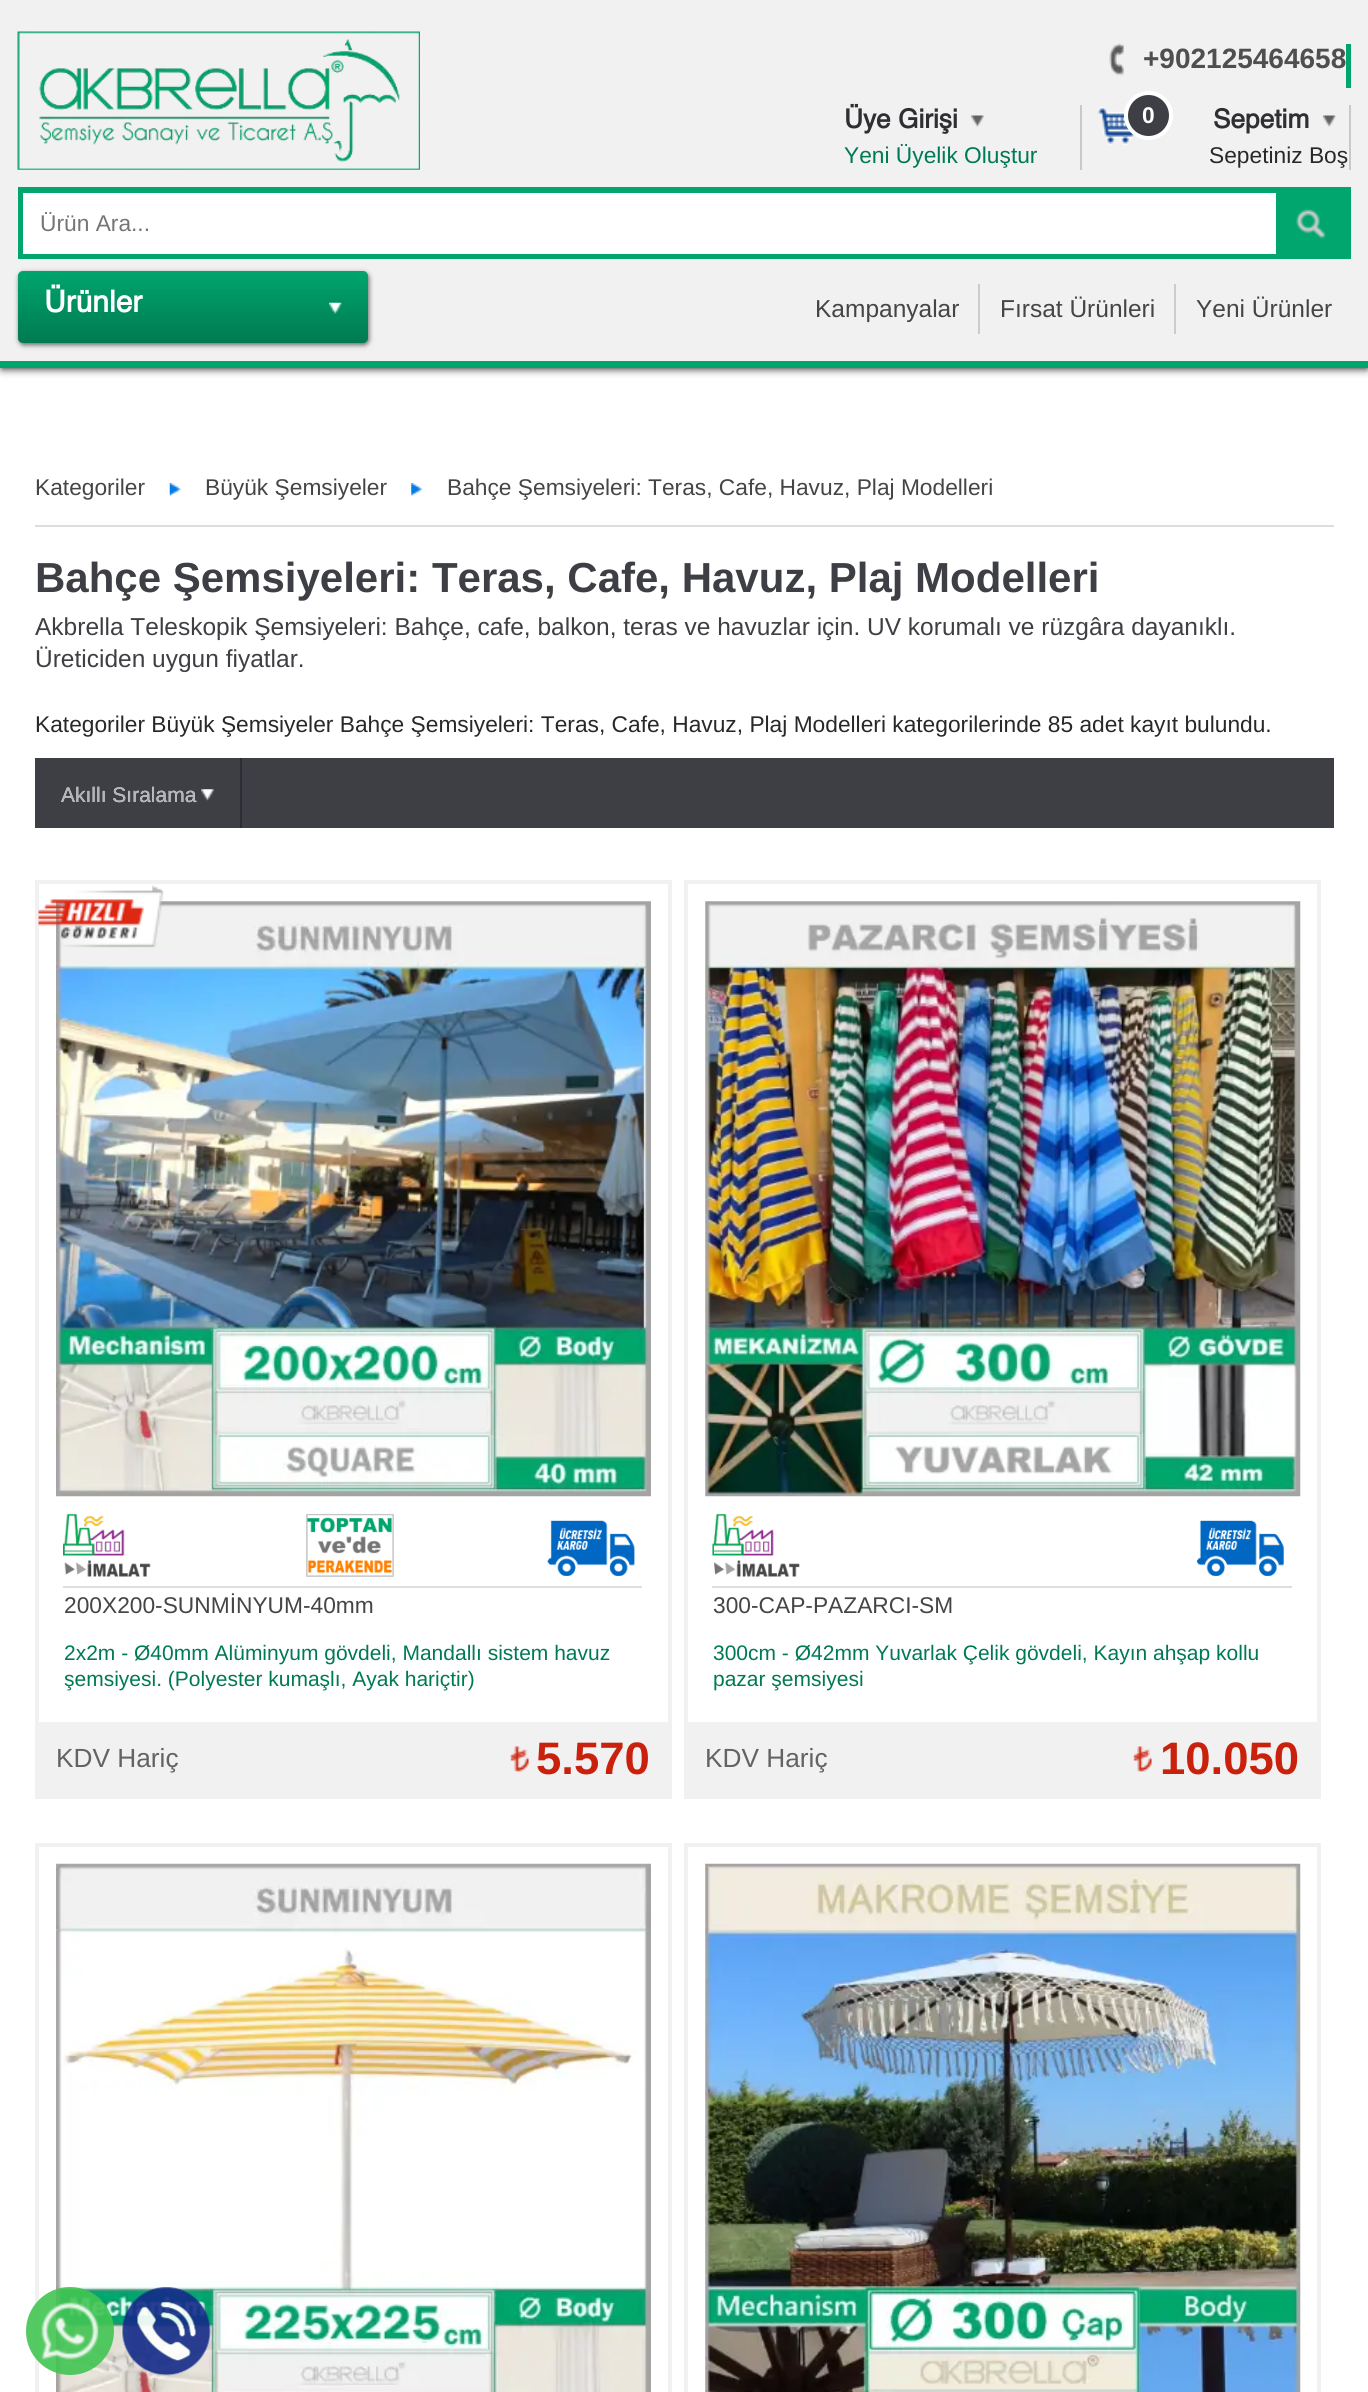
#include <cairo/cairo.h>
#include <math.h>
#include <stddef.h>

typedef struct { double x, y; const char *s; } line_t;
typedef struct { double x, y, w, h; unsigned color; } box_t;
static cairo_t *cr;

static void rgb(unsigned color)
{
	cairo_set_source_rgb(cr, (color >> 16) / 255.0, (color >> 8 & 255) / 255.0, (color & 255) / 255.0);
}

static void rrect(double x, double y, double w, double h, double r)
{
	cairo_new_sub_path(cr);
	cairo_arc(cr, x + w - r, y + h - r, r, 0, M_PI / 2);
	cairo_arc(cr, x + r, y + h - r, r, M_PI / 2, M_PI);
	cairo_arc(cr, x + r, y + r, r, M_PI, 1.5 * M_PI);
	cairo_arc(cr, x + w - r, y + r, r, 1.5 * M_PI, 2 * M_PI);
	cairo_close_path(cr);
}

static void soft_shadow(double x, double y, double w, double h, double r, double blur, double alpha)
{
	cairo_push_group_with_content(cr, CAIRO_CONTENT_ALPHA);
	cairo_set_operator(cr, CAIRO_OPERATOR_SOURCE);
	for (int i = 15; i >= -15 && fmin(w, h) + blur * i / 3 > 0; i -= 2) {
		double e = blur * i / 6;
		cairo_set_source_rgba(cr, 0, 0, 0, alpha * erfc((i - 1) / 8.5) / 2);
		rrect(x - e, y - e, w + 2 * e, h + 2 * e, fmax(0, fmin(r + e + blur * .6, fmin(w, h) / 2 + e)));
		cairo_fill(cr);
	}
	cairo_pattern_t *soft = cairo_pop_group(cr);
	cairo_mask(cr, soft);
	cairo_pattern_destroy(soft);
}

static void image(const char *path, double x, double y, double w, double h)
{
	cairo_surface_t *image = cairo_image_surface_create_from_png(path);
	cairo_save(cr);
	cairo_set_source_surface(cr, image, x, y);
	cairo_rectangle(cr, x, y, w, h);
	cairo_fill(cr);
	cairo_restore(cr);
	cairo_surface_destroy(image);
}

int main(void) {
	cairo_surface_t *surface = cairo_image_surface_create(CAIRO_FORMAT_RGB24, 1368, 2392);
	cr = cairo_create(surface);
	cairo_font_options_t *options = cairo_font_options_create();
	cairo_font_options_set_hint_metrics(options, CAIRO_HINT_METRICS_OFF);
	cairo_font_options_set_hint_style(options, CAIRO_HINT_STYLE_NONE);
	cairo_set_font_options(cr, options);
	cairo_set_miter_limit(cr, 4);
	cairo_pattern_t *gradient;
	rgb(0xffffff);
	cairo_paint(cr);
	rgb(0x000000);
	soft_shadow(2, 4, 1365, 364, 0, 4.5, 1);
	rgb(0xf1f1f1);
	cairo_rectangle(cr, 0, 0, 1368, 361);
	cairo_fill(cr);
	rgb(0x00a56d);
	cairo_rectangle(cr, 0, 361, 1368, 7);
	cairo_fill(cr);
	image("img/1.png", 17, 31, 403, 139);
	cairo_rectangle(cr, 1346, 44, 5, 44);
	cairo_fill(cr);
	image("img/2.png", 1109, 43, 15, 33);
	{
		static const box_t items[] = {
			{978, 284, 2, 50, 0xcccccc},
			{1174, 284, 2, 50, 0xcccccc},
			{1080, 105, 2, 65, 0xc9c9c9},
		};
		for (size_t i = 0; i < sizeof items / sizeof *items; i++) {
			rgb(items[i].color);
			cairo_rectangle(cr, items[i].x, items[i].y, items[i].w, items[i].h);
			cairo_fill(cr);
		}
	}
	image("img/3.png", 971, 115, 13, 12);
	cairo_rectangle(cr, 1349, 105, 2, 65);
	cairo_fill(cr);
	image("img/4.png", 1097, 107, 41, 38);
	rgb(0x3e3f44);
	cairo_arc(cr, 1148.5, 115.5, 22.5, 0, 2 * M_PI);
	cairo_fill_preserve(cr);
	rgb(0xffffff);
	cairo_set_line_width(cr, 4);
	cairo_stroke(cr);
	image("img/5.png", 1323, 115, 13, 12);
	rgb(0x01a66f);
	cairo_rectangle(cr, 18, 187, 1333, 72);
	cairo_fill(cr);
	rgb(0xffffff);
	cairo_rectangle(cr, 23, 193, 1253, 61);
	cairo_fill(cr);
	image("img/6.png", 1296, 209, 30, 30);
	rgb(0x666666);
	soft_shadow(19, 273, 350, 72, 5, 2.5, 1);
	gradient = cairo_pattern_create_linear(193, 271, 193, 343);
	cairo_pattern_add_color_stop_rgba(gradient, 0, 0, 0.647, 0.427, 1);
	cairo_pattern_add_color_stop_rgba(gradient, 1, 0, 0.478, 0.318, 1);
	cairo_set_source(cr, gradient);
	cairo_pattern_destroy(gradient);
	rrect(18, 271, 350, 72, 5);
	cairo_fill(cr);
	image("img/7.png", 329, 302, 13, 12);
	rgb(0xdddddd);
	cairo_rectangle(cr, 35, 525, 1299, 2);
	cairo_fill(cr);
	image("img/8.png", 169, 483, 12, 13);
	image("img/9.png", 411, 483, 12, 13);
	rgb(0x3e3f44);
	cairo_rectangle(cr, 35, 758, 1299, 70);
	cairo_fill(cr);
	rgb(0x2c2d34);
	cairo_rectangle(cr, 240, 758, 2, 70);
	cairo_fill(cr);
	image("img/10.png", 201, 789, 13, 12);
	cairo_rectangle(cr, 37, 882, 633, 915);
	rgb(0xf1f1f1);
	cairo_stroke(cr);
	image("img/12.png", 56, 901, 595, 596);
	image("img/11.png", 38, 885, 126, 63);
	rgb(0xdedede);
	cairo_rectangle(cr, 63, 1586, 579, 2);
	cairo_fill(cr);
	image("img/13.png", 63, 1513, 88, 64);
	image("img/14.png", 306, 1513, 88, 64);
	image("img/15.png", 547, 1520, 88, 56);
	rgb(0xf1f1f1);
	cairo_rectangle(cr, 39, 1722, 629, 73);
	cairo_fill(cr);
	image("img/16.png", 510, 1746, 19, 26);
	cairo_rectangle(cr, 686, 882, 633, 915);
	cairo_stroke(cr);
	image("img/17.png", 705, 901, 596, 596);
	rgb(0xdedede);
	cairo_rectangle(cr, 712, 1586, 580, 2);
	cairo_fill(cr);
	image("img/18.png", 712, 1513, 88, 64);
	image("img/19.png", 1197, 1520, 87, 56);
	rgb(0xf1f1f1);
	cairo_rectangle(cr, 688, 1722, 629, 73);
	cairo_fill(cr);
	image("img/16.png", 1133, 1746, 19, 26);
	cairo_rectangle(cr, 37, 1845, 633, 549);
	cairo_stroke(cr);
	image("img/20.png", 56, 1863, 595, 529);
	cairo_rectangle(cr, 686, 1845, 633, 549);
	cairo_stroke(cr);
	image("img/21.png", 705, 1863, 596, 529);
	cairo_set_source_rgba(cr, 0.259, 0.769, 0.322, 0.9);
	cairo_arc(cr, 70, 2331, 44, 0, 2 * M_PI);
	cairo_fill(cr);
	image("img/22.png", 41, 2302, 58, 58);
	image("img/23.png", 122, 2287, 89, 89);
	cairo_select_font_face(cr, "Liberation Sans", CAIRO_FONT_SLANT_NORMAL, CAIRO_FONT_WEIGHT_BOLD);
	cairo_set_font_size(cr, 28);
	rgb(0x4f4f4f);
	cairo_move_to(cr, 1143, 68);
	cairo_show_text(cr, "+902125464658");
	cairo_select_font_face(cr, "Liberation Sans", CAIRO_FONT_SLANT_NORMAL, CAIRO_FONT_WEIGHT_NORMAL);
	cairo_set_font_size(cr, 24.5);
	rgb(0x454545);
	{
		static const line_t items[] = {
			{815, 317, "Kampanyalar"},
			{1000, 317, "Fırsat Ürünleri"},
			{1196, 317, "Yeni Ürünler"},
		};
		for (size_t i = 0; i < sizeof items / sizeof *items; i++) {
			cairo_move_to(cr, items[i].x, items[i].y);
			cairo_show_text(cr, items[i].s);
		}
	}
	cairo_select_font_face(cr, "Helvetica", CAIRO_FONT_SLANT_NORMAL, CAIRO_FONT_WEIGHT_BOLD);
	cairo_set_font_size(cr, 26.25);
	rgb(0x2f2f33);
	cairo_move_to(cr, 844, 128);
	cairo_show_text(cr, "Üye Girişi");
	cairo_select_font_face(cr, "Liberation Sans", CAIRO_FONT_SLANT_NORMAL, CAIRO_FONT_WEIGHT_NORMAL);
	cairo_set_font_size(cr, 22.75);
	rgb(0x007955);
	cairo_move_to(cr, 844, 163);
	cairo_show_text(cr, "Yeni Üyelik Oluştur");
	cairo_select_font_face(cr, "Liberation Sans", CAIRO_FONT_SLANT_NORMAL, CAIRO_FONT_WEIGHT_BOLD);
	rgb(0xffffff);
	cairo_move_to(cr, 1142, 123);
	cairo_show_text(cr, "0");
	cairo_select_font_face(cr, "Liberation Sans", CAIRO_FONT_SLANT_NORMAL, CAIRO_FONT_WEIGHT_NORMAL);
	rgb(0x282828);
	cairo_move_to(cr, 1209, 163);
	cairo_show_text(cr, "Sepetiniz Boş");
	cairo_select_font_face(cr, "Helvetica", CAIRO_FONT_SLANT_NORMAL, CAIRO_FONT_WEIGHT_BOLD);
	cairo_set_font_size(cr, 26.25);
	rgb(0x2f2f33);
	cairo_move_to(cr, 1213, 128);
	cairo_show_text(cr, "Sepetim");
	cairo_select_font_face(cr, "Liberation Sans", CAIRO_FONT_SLANT_NORMAL, CAIRO_FONT_WEIGHT_NORMAL);
	cairo_set_font_size(cr, 22.75);
	rgb(0x757575);
	cairo_move_to(cr, 40, 231);
	cairo_show_text(cr, "Ürün Ara...");
	cairo_select_font_face(cr, "Helvetica", CAIRO_FONT_SLANT_NORMAL, CAIRO_FONT_WEIGHT_BOLD);
	cairo_set_font_size(cr, 30);
	rgb(0xffffff);
	cairo_move_to(cr, 44, 312);
	cairo_show_text(cr, "Ürünler");
	cairo_select_font_face(cr, "Liberation Sans", CAIRO_FONT_SLANT_NORMAL, CAIRO_FONT_WEIGHT_NORMAL);
	cairo_set_font_size(cr, 22.75);
	rgb(0x454545);
	{
		static const line_t items[] = {
			{35, 495, "Kategoriler"},
			{205, 495, "Büyük Şemsiyeler"},
			{447, 495, "Bahçe Şemsiyeleri: Teras, Cafe, Havuz, Plaj Modelleri"},
		};
		for (size_t i = 0; i < sizeof items / sizeof *items; i++) {
			cairo_move_to(cr, items[i].x, items[i].y);
			cairo_show_text(cr, items[i].s);
		}
	}
	cairo_select_font_face(cr, "Liberation Sans", CAIRO_FONT_SLANT_NORMAL, CAIRO_FONT_WEIGHT_BOLD);
	cairo_set_font_size(cr, 42);
	rgb(0x3e3f44);
	cairo_move_to(cr, 35, 592);
	cairo_show_text(cr, "Bahçe Şemsiyeleri: Teras, Cafe, Havuz, Plaj Modelleri");
	cairo_select_font_face(cr, "Liberation Sans", CAIRO_FONT_SLANT_NORMAL, CAIRO_FONT_WEIGHT_NORMAL);
	cairo_set_font_size(cr, 24.5);
	cairo_move_to(cr, 35, 635);
	cairo_show_text(cr, "Akbrella Teleskopik Şemsiyeleri: Bahçe, cafe, balkon, teras ve havuzlar için. UV korumalı ve rüzgâra dayanıklı.");
	cairo_move_to(cr, 35, 667);
	cairo_show_text(cr, "Üreticiden uygun fiyatlar.");
	cairo_set_font_size(cr, 22.75);
	rgb(0x282828);
	cairo_move_to(cr, 35, 732);
	cairo_show_text(cr, "Kategoriler Büyük Şemsiyeler Bahçe Şemsiyeleri: Teras, Cafe, Havuz, Plaj Modelleri kategorilerinde 85 adet kayıt bulundu.");
	cairo_set_font_size(cr, 21);
	rgb(0xffffff);
	cairo_move_to(cr, 61, 802);
	cairo_show_text(cr, "Akıllı Sıralama");
	rgb(0xb4b4b6);
	cairo_move_to(cr, 61, 802);
	cairo_show_text(cr, "Akıllı Sıralama");
	cairo_set_font_size(cr, 22.75);
	rgb(0x454545);
	cairo_move_to(cr, 64, 1613);
	cairo_show_text(cr, "200X200-SUNMİNYUM-40mm");
	cairo_set_font_size(cr, 21);
	rgb(0x007955);
	cairo_move_to(cr, 64, 1660);
	cairo_show_text(cr, "2x2m - Ø40mm Alüminyum gövdeli, Mandallı sistem havuz");
	cairo_move_to(cr, 64, 1686);
	cairo_show_text(cr, "şemsiyesi. (Polyester kumaşlı, Ayak hariçtir)");
	cairo_set_font_size(cr, 26.25);
	rgb(0x636363);
	cairo_move_to(cr, 56, 1767);
	cairo_show_text(cr, "KDV Hariç");
	cairo_select_font_face(cr, "Liberation Sans", CAIRO_FONT_SLANT_NORMAL, CAIRO_FONT_WEIGHT_BOLD);
	cairo_set_font_size(cr, 45.5);
	rgb(0xc9210c);
	cairo_move_to(cr, 536, 1774);
	cairo_show_text(cr, "5.570");
	cairo_select_font_face(cr, "Liberation Sans", CAIRO_FONT_SLANT_NORMAL, CAIRO_FONT_WEIGHT_NORMAL);
	cairo_set_font_size(cr, 22.75);
	rgb(0x454545);
	cairo_move_to(cr, 713, 1613);
	cairo_show_text(cr, "300-CAP-PAZARCI-SM");
	cairo_set_font_size(cr, 21);
	rgb(0x007955);
	cairo_move_to(cr, 713, 1660);
	cairo_show_text(cr, "300cm - Ø42mm Yuvarlak Çelik gövdeli, Kayın ahşap kollu");
	cairo_move_to(cr, 713, 1686);
	cairo_show_text(cr, "pazar şemsiyesi");
	cairo_set_font_size(cr, 26.25);
	rgb(0x636363);
	cairo_move_to(cr, 705, 1767);
	cairo_show_text(cr, "KDV Hariç");
	cairo_select_font_face(cr, "Liberation Sans", CAIRO_FONT_SLANT_NORMAL, CAIRO_FONT_WEIGHT_BOLD);
	cairo_set_font_size(cr, 45.5);
	rgb(0xc9210c);
	cairo_move_to(cr, 1160, 1774);
	cairo_show_text(cr, "10.050");
	cairo_surface_write_to_png(surface, "page.png");
	cairo_font_options_destroy(options);
	cairo_destroy(cr);
	cairo_surface_destroy(surface);
	return 0;
}
